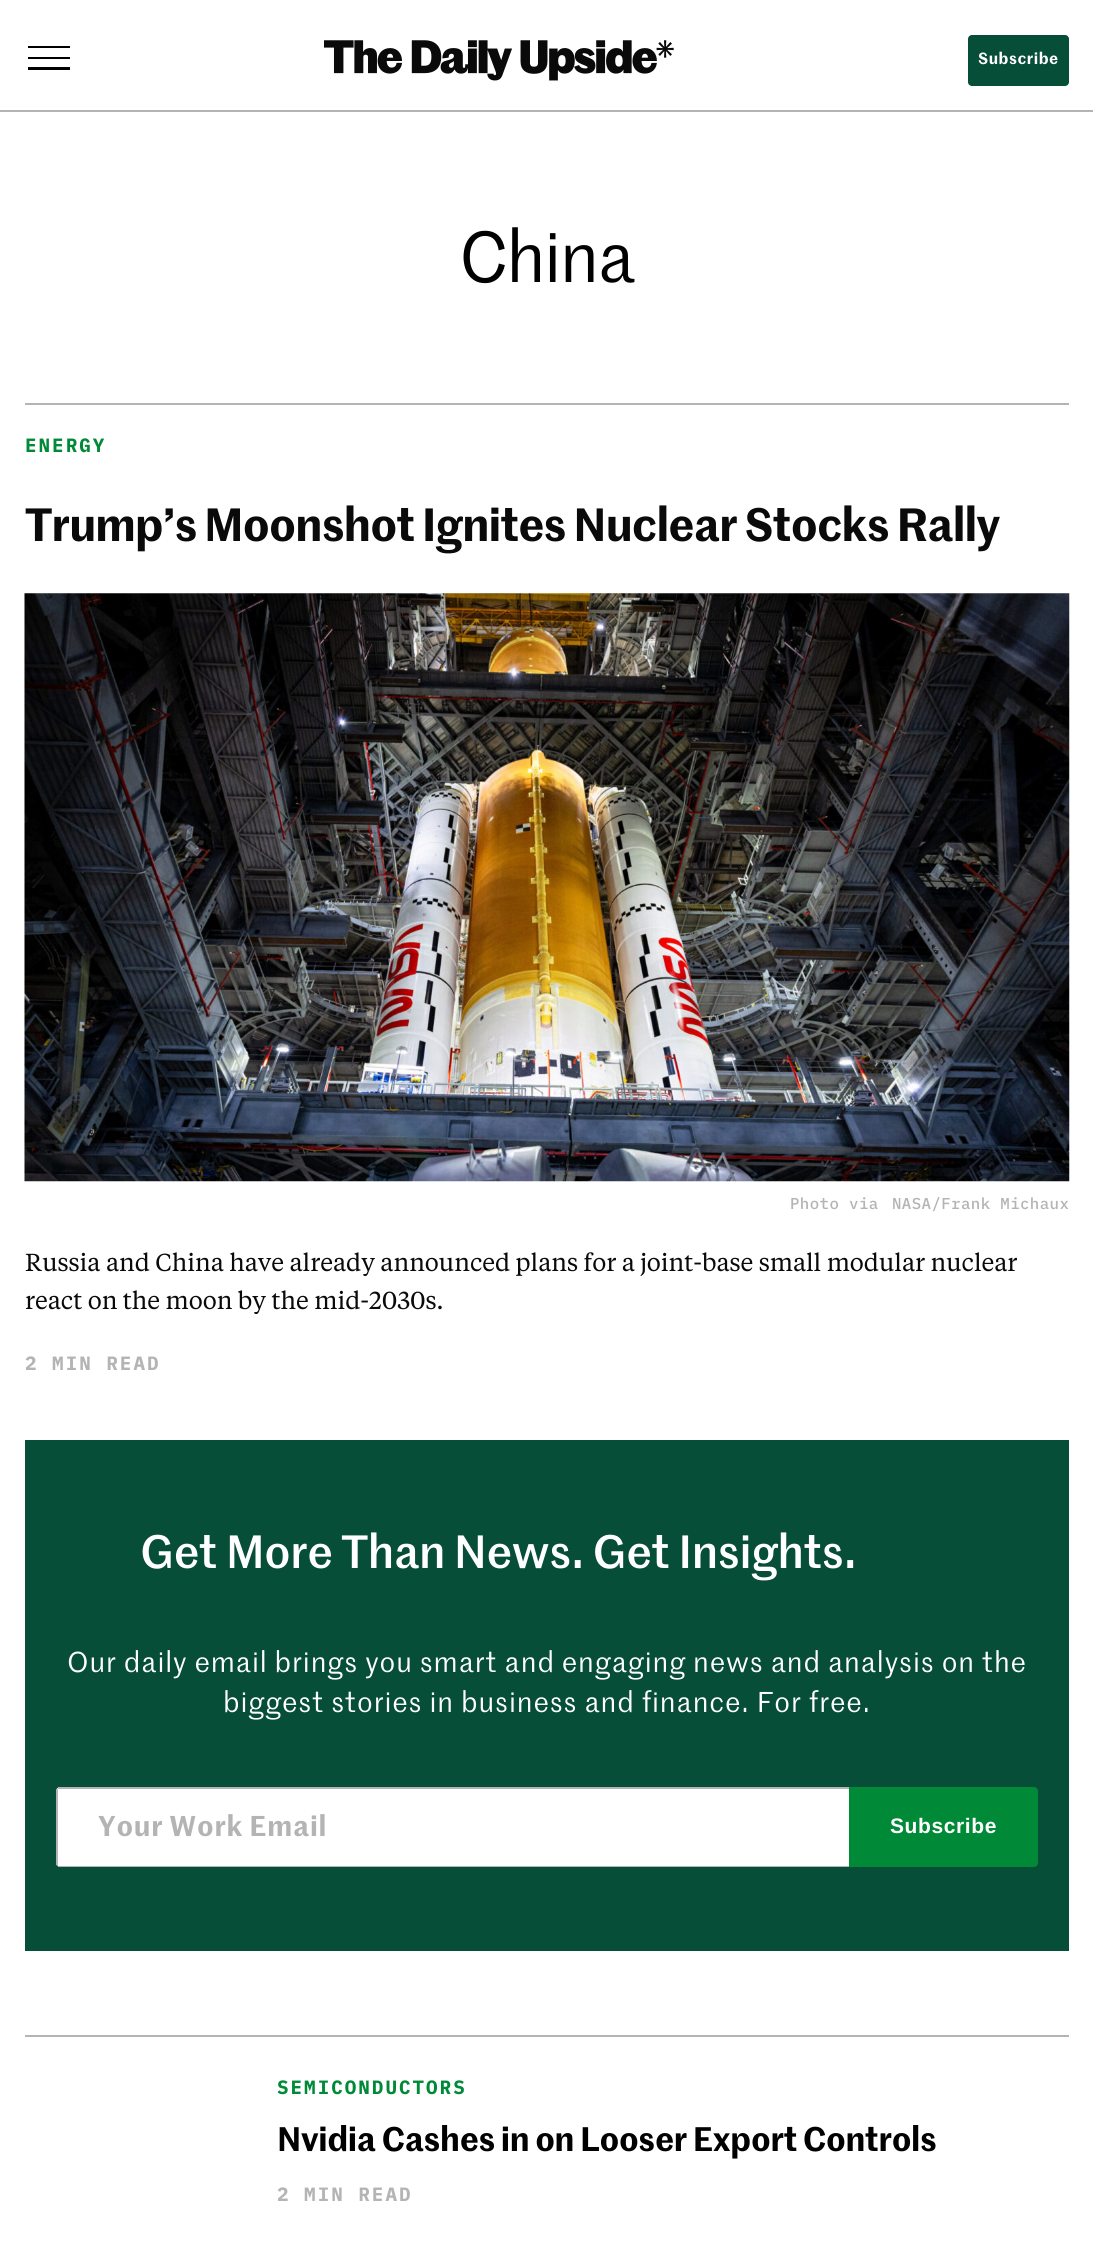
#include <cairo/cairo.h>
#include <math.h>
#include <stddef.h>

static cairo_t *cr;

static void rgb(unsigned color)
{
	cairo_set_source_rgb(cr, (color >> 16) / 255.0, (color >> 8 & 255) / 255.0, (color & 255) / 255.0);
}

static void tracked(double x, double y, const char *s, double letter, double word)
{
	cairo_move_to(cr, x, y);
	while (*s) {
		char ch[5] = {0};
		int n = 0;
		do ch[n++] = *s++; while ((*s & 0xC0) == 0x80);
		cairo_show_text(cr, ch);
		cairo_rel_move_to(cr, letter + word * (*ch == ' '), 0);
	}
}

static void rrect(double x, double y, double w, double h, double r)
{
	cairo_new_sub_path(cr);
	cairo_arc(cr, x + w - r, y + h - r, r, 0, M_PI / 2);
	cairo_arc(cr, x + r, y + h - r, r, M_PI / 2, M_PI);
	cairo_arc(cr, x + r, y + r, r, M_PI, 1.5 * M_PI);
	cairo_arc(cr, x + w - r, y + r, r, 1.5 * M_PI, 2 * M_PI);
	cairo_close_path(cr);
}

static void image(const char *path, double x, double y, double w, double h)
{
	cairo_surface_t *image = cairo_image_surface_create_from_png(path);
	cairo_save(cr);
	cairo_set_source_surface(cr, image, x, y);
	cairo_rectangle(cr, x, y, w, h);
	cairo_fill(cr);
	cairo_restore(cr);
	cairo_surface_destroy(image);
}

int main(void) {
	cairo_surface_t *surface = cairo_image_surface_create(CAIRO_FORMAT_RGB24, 1093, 2249);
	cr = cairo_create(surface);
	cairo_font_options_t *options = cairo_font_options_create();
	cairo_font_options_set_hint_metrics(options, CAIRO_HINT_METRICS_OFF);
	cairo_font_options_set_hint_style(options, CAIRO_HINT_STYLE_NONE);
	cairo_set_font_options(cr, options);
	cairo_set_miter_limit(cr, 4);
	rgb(0xffffff);
	cairo_paint(cr);
	rgb(0xb4b4b4);
	cairo_rectangle(cr, 0, 110, 1093, 2);
	cairo_fill(cr);
	rgb(0x000000);
	cairo_new_path(cr);
	cairo_move_to(cr, 28, 46);
	cairo_line_to(cr, 28, 48);
	cairo_line_to(cr, 70, 48);
	cairo_line_to(cr, 70, 46);
	cairo_close_path(cr);
	cairo_move_to(cr, 28, 59);
	cairo_line_to(cr, 70, 59);
	cairo_line_to(cr, 70, 57);
	cairo_line_to(cr, 28, 57);
	cairo_close_path(cr);
	cairo_move_to(cr, 28, 70);
	cairo_line_to(cr, 70, 70);
	cairo_line_to(cr, 70, 67);
	cairo_line_to(cr, 28, 67);
	cairo_close_path(cr);
	cairo_fill(cr);
	image("img/1.png", 324, 40, 350, 41);
	rgb(0x064e37);
	rrect(968, 35, 101, 51, 4);
	cairo_fill(cr);
	rgb(0xb4b4b4);
	cairo_rectangle(cr, 25, 403, 1044, 2);
	cairo_fill(cr);
	image("img/2.png", 24, 593, 1046, 589);
	rgb(0x064e37);
	cairo_rectangle(cr, 25, 1440, 1044, 511);
	cairo_fill(cr);
	rgb(0xffffff);
	cairo_new_path(cr);
	cairo_move_to(cr, 60, 1787);
	cairo_line_to(cr, 849, 1787);
	cairo_line_to(cr, 849, 1867);
	cairo_line_to(cr, 60, 1867);
	cairo_curve_to(cr, 58, 1867, 56, 1865, 56, 1863);
	cairo_line_to(cr, 56, 1791);
	cairo_curve_to(cr, 56, 1789, 58, 1787, 60, 1787);
	cairo_close_path(cr);
	cairo_fill(cr);
	rgb(0xb4b4b4);
	cairo_rectangle(cr, 58, 1787, 791, 2);
	cairo_fill(cr);
	cairo_rectangle(cr, 58, 1866, 791, 1);
	cairo_fill(cr);
	cairo_save(cr);
	rrect(56, 1787, 982, 80, 4);
	cairo_clip(cr);
	cairo_rectangle(cr, 56, 1789, 2, 77);
	cairo_fill(cr);
	cairo_restore(cr);
	rgb(0x008a37);
	cairo_new_path(cr);
	cairo_move_to(cr, 850, 1788);
	cairo_line_to(cr, 1034, 1788);
	cairo_curve_to(cr, 1035.5, 1788, 1037, 1789.5, 1037, 1791);
	cairo_line_to(cr, 1037, 1863);
	cairo_curve_to(cr, 1037, 1864.5, 1035.5, 1866, 1034, 1866);
	cairo_line_to(cr, 850, 1866);
	cairo_close_path(cr);
	cairo_fill_preserve(cr);
	cairo_stroke(cr);
	rgb(0xb4b4b4);
	cairo_rectangle(cr, 25, 2035, 1044, 2);
	cairo_fill(cr);
	cairo_select_font_face(cr, "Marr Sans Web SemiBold", CAIRO_FONT_SLANT_NORMAL, CAIRO_FONT_WEIGHT_NORMAL);
	cairo_set_font_size(cr, 15.75);
	rgb(0xffffff);
	tracked(978, 64, "Subscribe", 0.5, 0);
	cairo_select_font_face(cr, "Marr Sans Web", CAIRO_FONT_SLANT_NORMAL, CAIRO_FONT_WEIGHT_NORMAL);
	cairo_set_font_size(cr, 70);
	rgb(0x000000);
	tracked(459, 282, "China", -1.75, 0);
	cairo_select_font_face(cr, "IBM Plex Mono", CAIRO_FONT_SLANT_NORMAL, CAIRO_FONT_WEIGHT_BOLD);
	cairo_set_font_size(cr, 19.25);
	rgb(0x008a37);
	tracked(25, 452, "ENERGY", 2, 0);
	cairo_select_font_face(cr, "Marr Sans Web SemiBold", CAIRO_FONT_SLANT_NORMAL, CAIRO_FONT_WEIGHT_NORMAL);
	cairo_set_font_size(cr, 45.5);
	rgb(0x0a0a0a);
	tracked(25, 541, "Trump’s Moonshot Ignites Nuclear Stocks Rally", -0.9, 0);
	cairo_select_font_face(cr, "IBM Plex Mono Medium", CAIRO_FONT_SLANT_NORMAL, CAIRO_FONT_WEIGHT_NORMAL);
	cairo_set_font_size(cr, 15.75);
	rgb(0xb4b4b4);
	tracked(790, 1209, "Photo via", 0.4, 0);
	tracked(892, 1209, "NASA/Frank Michaux", 0.4, 0);
	cairo_select_font_face(cr, "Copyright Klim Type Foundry", CAIRO_FONT_SLANT_NORMAL, CAIRO_FONT_WEIGHT_NORMAL);
	cairo_set_font_size(cr, 24.5);
	rgb(0x0a0a0a);
	tracked(25, 1271, "Russia and China have already announced plans for a joint-base small modular nuclear", -0.05, 0);
	tracked(25, 1309, "react on the moon by the mid-2030s.", -0.05, 0);
	cairo_select_font_face(cr, "IBM Plex Mono", CAIRO_FONT_SLANT_NORMAL, CAIRO_FONT_WEIGHT_BOLD);
	cairo_set_font_size(cr, 19.25);
	rgb(0xb4b4b4);
	tracked(25, 1370, "2 MIN READ", 2, 0);
	cairo_select_font_face(cr, "Marr Sans Web Medium", CAIRO_FONT_SLANT_NORMAL, CAIRO_FONT_WEIGHT_NORMAL);
	cairo_set_font_size(cr, 45.5);
	rgb(0xffffff);
	tracked(140, 1568, "Get More Than News. Get Insights.", -0.45, 0);
	cairo_select_font_face(cr, "Marr Sans Web", CAIRO_FONT_SLANT_NORMAL, CAIRO_FONT_WEIGHT_NORMAL);
	cairo_set_font_size(cr, 28);
	tracked(67, 1672, "Our daily email brings you smart and engaging news and analysis on the", 0.85, 0);
	tracked(223, 1712, "biggest stories in business and finance. For free.", 0.85, 0);
	cairo_select_font_face(cr, "Marr Sans Web SemiBold", CAIRO_FONT_SLANT_NORMAL, CAIRO_FONT_WEIGHT_NORMAL);
	rgb(0xb4b4b4);
	tracked(98, 1836, "Your Work Email", 0.75, 0);
	cairo_select_font_face(cr, "Liberation Sans", CAIRO_FONT_SLANT_NORMAL, CAIRO_FONT_WEIGHT_BOLD);
	cairo_set_font_size(cr, 21);
	rgb(0xffffff);
	tracked(890, 1833, "Subscribe", 0.6, 0);
	cairo_select_font_face(cr, "IBM Plex Mono", CAIRO_FONT_SLANT_NORMAL, CAIRO_FONT_WEIGHT_BOLD);
	cairo_set_font_size(cr, 19.25);
	rgb(0x008a37);
	tracked(277, 2094, "SEMICONDUCTORS", 2, 0);
	cairo_select_font_face(cr, "Marr Sans Web SemiBold", CAIRO_FONT_SLANT_NORMAL, CAIRO_FONT_WEIGHT_NORMAL);
	cairo_set_font_size(cr, 33.25);
	rgb(0x000000);
	tracked(277, 2151, "Nvidia Cashes in on Looser Export Controls", -0.35, 0);
	cairo_select_font_face(cr, "IBM Plex Mono", CAIRO_FONT_SLANT_NORMAL, CAIRO_FONT_WEIGHT_BOLD);
	cairo_set_font_size(cr, 19.25);
	rgb(0xb4b4b4);
	tracked(277, 2201, "2 MIN READ", 2, 0);
	cairo_surface_write_to_png(surface, "page.png");
	cairo_font_options_destroy(options);
	cairo_destroy(cr);
	cairo_surface_destroy(surface);
	return 0;
}
